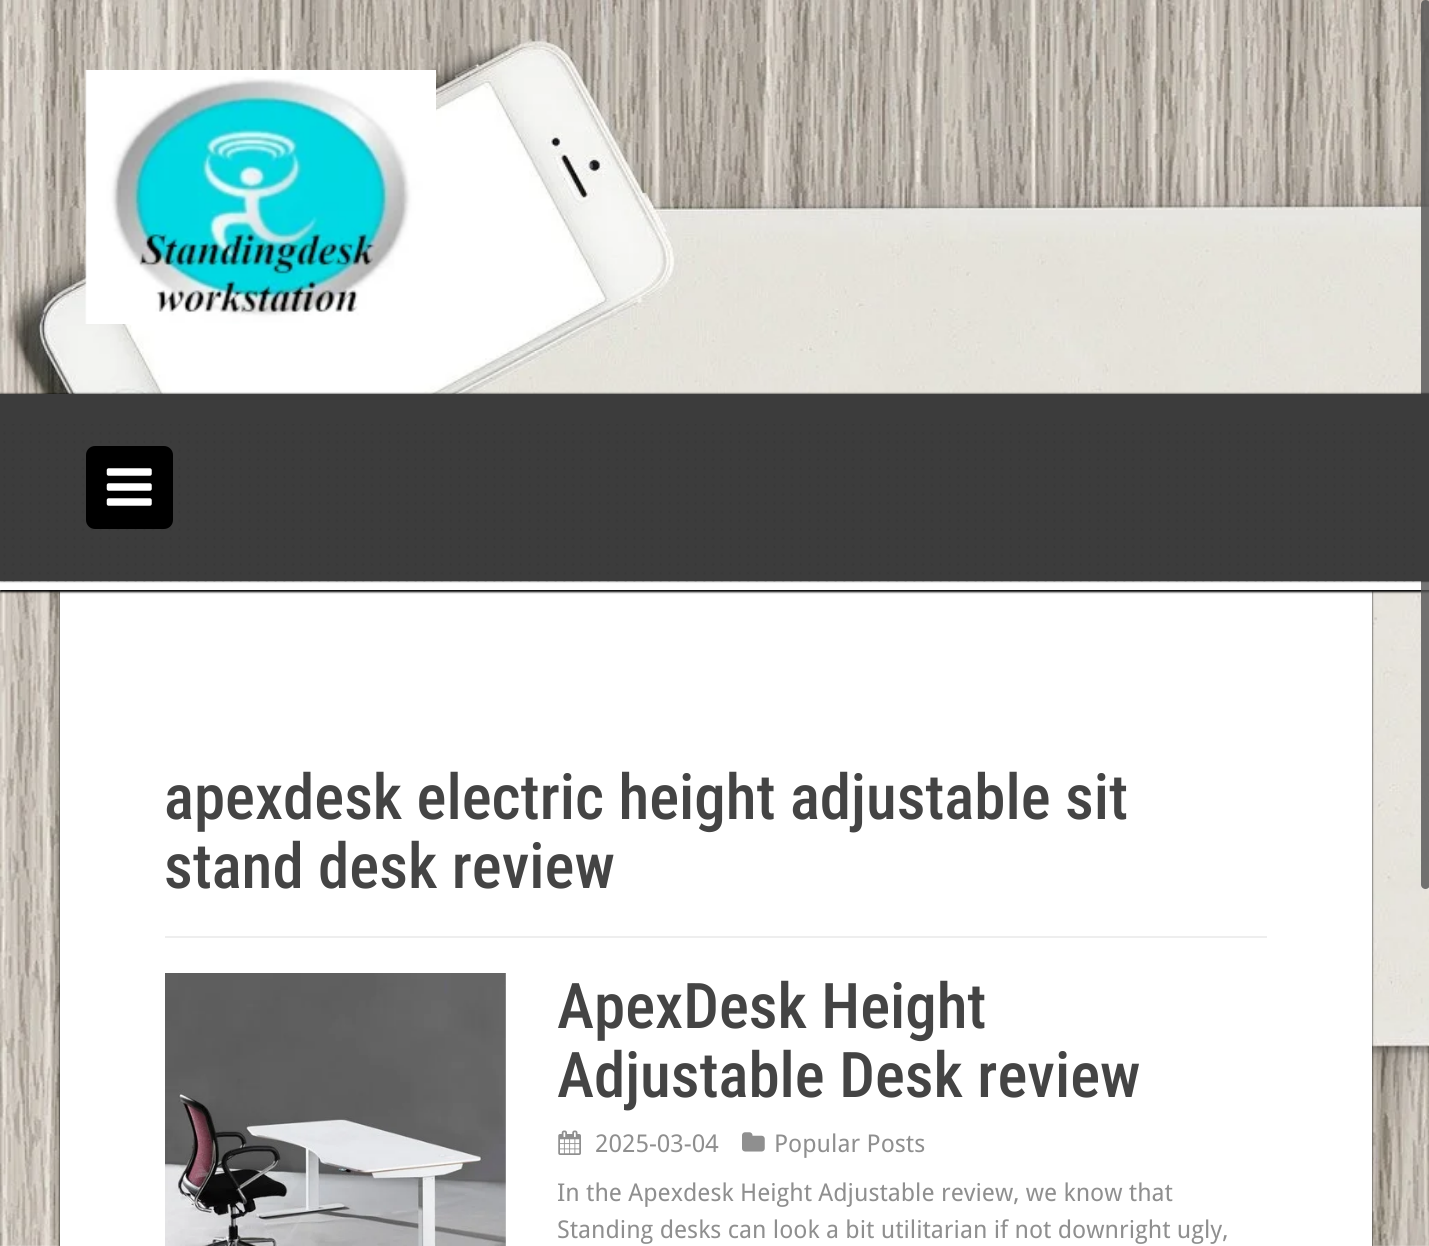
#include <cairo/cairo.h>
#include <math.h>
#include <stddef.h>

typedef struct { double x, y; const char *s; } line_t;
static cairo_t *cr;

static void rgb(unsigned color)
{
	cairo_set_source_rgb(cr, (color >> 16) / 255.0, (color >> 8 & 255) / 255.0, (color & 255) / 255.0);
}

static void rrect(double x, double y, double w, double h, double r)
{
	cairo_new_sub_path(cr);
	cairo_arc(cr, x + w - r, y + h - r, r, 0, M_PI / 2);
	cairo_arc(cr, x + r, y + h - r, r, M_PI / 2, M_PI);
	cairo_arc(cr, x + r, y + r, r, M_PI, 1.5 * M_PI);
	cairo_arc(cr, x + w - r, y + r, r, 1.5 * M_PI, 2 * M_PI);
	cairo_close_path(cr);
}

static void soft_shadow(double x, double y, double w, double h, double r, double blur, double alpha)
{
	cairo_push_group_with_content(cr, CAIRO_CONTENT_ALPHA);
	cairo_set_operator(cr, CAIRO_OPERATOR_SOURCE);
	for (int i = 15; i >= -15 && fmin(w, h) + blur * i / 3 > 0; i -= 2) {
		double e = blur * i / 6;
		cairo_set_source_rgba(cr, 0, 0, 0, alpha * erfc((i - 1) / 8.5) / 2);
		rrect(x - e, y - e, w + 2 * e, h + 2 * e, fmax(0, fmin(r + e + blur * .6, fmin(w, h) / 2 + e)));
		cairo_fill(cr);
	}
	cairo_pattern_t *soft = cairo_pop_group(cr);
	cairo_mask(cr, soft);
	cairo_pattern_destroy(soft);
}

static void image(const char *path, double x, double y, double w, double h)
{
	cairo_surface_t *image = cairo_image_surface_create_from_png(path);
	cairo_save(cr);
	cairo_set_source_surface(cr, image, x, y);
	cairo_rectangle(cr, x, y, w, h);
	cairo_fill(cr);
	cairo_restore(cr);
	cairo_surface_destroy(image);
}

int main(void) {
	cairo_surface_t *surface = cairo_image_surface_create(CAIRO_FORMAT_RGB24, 1429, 1246);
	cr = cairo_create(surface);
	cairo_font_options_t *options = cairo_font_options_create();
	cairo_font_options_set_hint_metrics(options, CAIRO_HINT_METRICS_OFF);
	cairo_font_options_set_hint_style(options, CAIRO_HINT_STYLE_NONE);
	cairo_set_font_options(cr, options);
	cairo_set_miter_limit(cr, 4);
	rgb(0xffffff);
	cairo_paint(cr);
	image("img/1.png", 0, 0, 1429, 1246);
	rgb(0x000000);
	soft_shadow(60, 592, 1312, 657, 0, 1, 1);
	rgb(0xffffff);
	cairo_rectangle(cr, 60, 590, 1312, 656);
	cairo_fill(cr);
	rgb(0x000000);
	soft_shadow(0, 583, 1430, 9, 0, 1, 1);
	rgb(0xffffff);
	cairo_rectangle(cr, 0, 581, 1429, 9);
	cairo_fill(cr);
	cairo_set_source_rgba(cr, 0.322, 0.322, 0.322, 0.79);
	rrect(1421, 0, 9, 889, 4.5);
	cairo_fill(cr);
	image("img/2.png", 85, 70, 351, 254);
	rgb(0x000000);
	soft_shadow(0, 394, 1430, 187, 0, 1, 1);
	rgb(0x3c3c3c);
	cairo_rectangle(cr, 0, 394, 1429, 187);
	cairo_fill(cr);
	image("img/3.png", 3, 424, 1412, 158);
	rgb(0x000000);
	rrect(86, 446, 87, 83, 9);
	cairo_fill(cr);
	image("img/4.png", 106, 468, 46, 38);
	rgb(0xeeeeee);
	cairo_rectangle(cr, 165, 936, 1102, 2);
	cairo_fill(cr);
	image("img/5.png", 165, 973, 341, 273);
	image("img/6.png", 558, 1130, 23, 25);
	image("img/7.png", 742, 1132, 23, 20);
	cairo_select_font_face(cr, "Roboto Condensed Medium", CAIRO_FONT_SLANT_NORMAL, CAIRO_FONT_WEIGHT_NORMAL);
	cairo_set_font_size(cr, 63);
	rgb(0x444444);
	{
		static const line_t items[] = {
			{164, 819, "apexdesk electric height adjustable sit"},
			{164, 888, "stand desk review"},
			{557, 1028, "ApexDesk Height"},
			{557, 1097, "Adjustable Desk review"},
		};
		for (size_t i = 0; i < sizeof items / sizeof *items; i++) {
			cairo_move_to(cr, items[i].x, items[i].y);
			cairo_show_text(cr, items[i].s);
		}
	}
	cairo_select_font_face(cr, "Droid Sans", CAIRO_FONT_SLANT_NORMAL, CAIRO_FONT_WEIGHT_NORMAL);
	cairo_set_font_size(cr, 24.5);
	rgb(0x8f8f8f);
	{
		static const line_t items[] = {
			{595, 1152, "2025-03-04"},
			{774, 1152, "Popular Posts"},
			{557, 1201, "In the Apexdesk Height Adjustable review, we know that"},
			{557, 1238, "Standing desks can look a bit utilitarian if not downright ugly,"},
		};
		for (size_t i = 0; i < sizeof items / sizeof *items; i++) {
			cairo_move_to(cr, items[i].x, items[i].y);
			cairo_show_text(cr, items[i].s);
		}
	}
	cairo_surface_write_to_png(surface, "page.png");
	cairo_font_options_destroy(options);
	cairo_destroy(cr);
	cairo_surface_destroy(surface);
	return 0;
}
